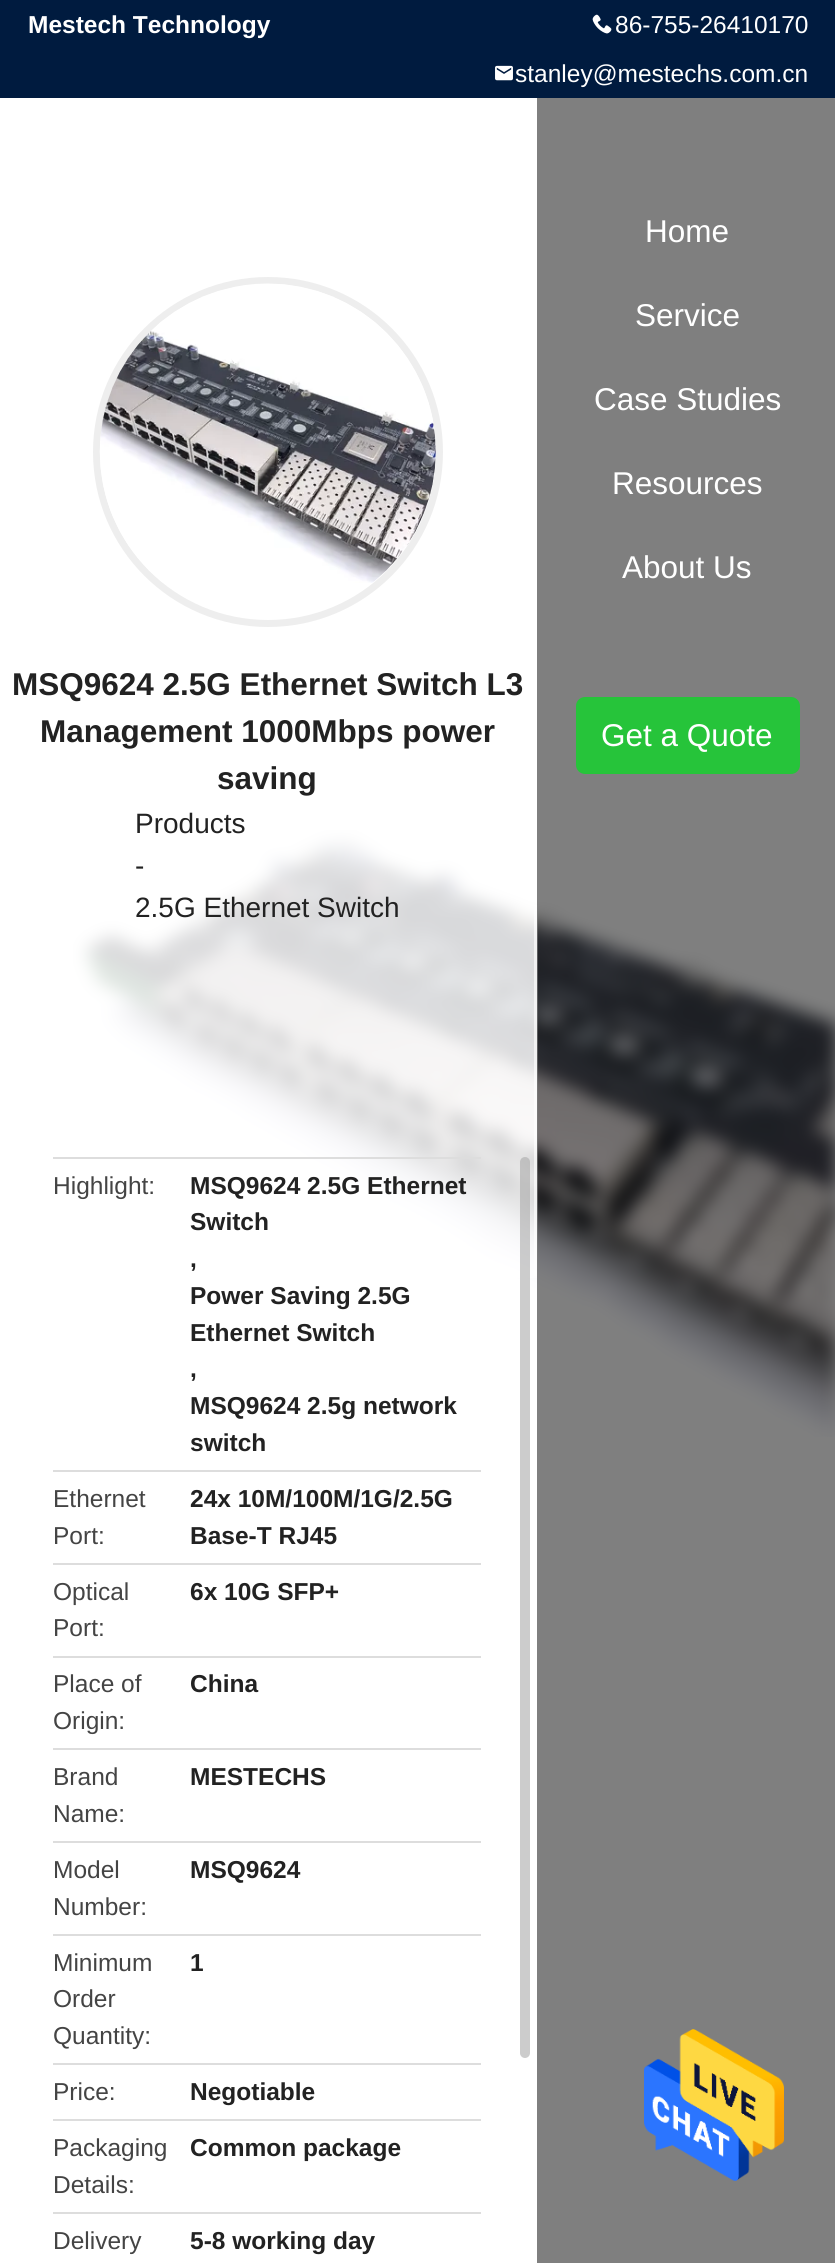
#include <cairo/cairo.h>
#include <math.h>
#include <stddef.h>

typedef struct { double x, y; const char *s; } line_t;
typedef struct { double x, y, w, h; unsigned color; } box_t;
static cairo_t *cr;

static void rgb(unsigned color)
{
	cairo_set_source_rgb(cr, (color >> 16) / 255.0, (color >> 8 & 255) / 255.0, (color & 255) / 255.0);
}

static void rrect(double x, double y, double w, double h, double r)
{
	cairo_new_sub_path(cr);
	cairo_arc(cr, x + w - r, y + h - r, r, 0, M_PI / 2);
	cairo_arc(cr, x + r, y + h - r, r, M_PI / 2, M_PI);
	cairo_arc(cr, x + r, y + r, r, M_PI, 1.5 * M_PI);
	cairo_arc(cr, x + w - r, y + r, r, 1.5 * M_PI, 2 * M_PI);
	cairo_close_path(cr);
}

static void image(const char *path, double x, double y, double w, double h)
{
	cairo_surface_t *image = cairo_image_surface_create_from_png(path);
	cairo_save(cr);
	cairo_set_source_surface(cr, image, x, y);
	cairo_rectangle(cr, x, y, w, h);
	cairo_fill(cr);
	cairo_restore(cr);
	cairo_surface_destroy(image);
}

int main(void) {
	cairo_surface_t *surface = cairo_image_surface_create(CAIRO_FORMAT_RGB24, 835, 2263);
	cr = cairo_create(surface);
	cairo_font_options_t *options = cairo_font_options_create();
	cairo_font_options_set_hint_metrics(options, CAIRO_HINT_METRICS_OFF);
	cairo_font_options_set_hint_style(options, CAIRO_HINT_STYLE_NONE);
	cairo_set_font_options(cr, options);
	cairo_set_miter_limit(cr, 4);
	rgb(0xffffff);
	cairo_paint(cr);
	rgb(0x001b3f);
	cairo_rectangle(cr, 0, 0, 835, 98);
	cairo_fill(cr);
	image("img/1.png", 592, 14, 20, 20);
	image("img/2.png", 495, 65, 18, 16);
	image("img/4.png", 73, 830, 762, 607);
	cairo_set_source_rgba(cr, 1, 1, 1, 0.8);
	cairo_rectangle(cr, 73, 830, 464, 448);
	cairo_fill(cr);
	cairo_set_source_rgba(cr, 1, 1, 1, 0.6);
	cairo_rectangle(cr, 534, 905, 4, 371);
	cairo_fill(cr);
	cairo_set_source_rgba(cr, 0, 0, 0, 0.5);
	cairo_rectangle(cr, 537, 98, 298, 2165);
	cairo_fill(cr);
	rgb(0x26c43a);
	rrect(576, 697, 224, 77, 9);
	cairo_fill(cr);
	cairo_arc(cr, 268, 452, 171.5, 0, 2 * M_PI);
	rgb(0xeeeeee);
	cairo_set_line_width(cr, 7);
	cairo_stroke(cr);
	image("img/3.png", 99, 283, 337, 300);
	{
		static const box_t items[] = {
			{53, 1157, 428, 2, 0xdddddd},
			{53, 1470, 428, 2, 0xdddddd},
			{53, 1563, 428, 2, 0xdddddd},
			{53, 1656, 428, 2, 0xdddddd},
			{53, 1748, 428, 2, 0xdddddd},
			{53, 1841, 428, 2, 0xdddddd},
			{53, 1934, 428, 2, 0xdddddd},
			{53, 2063, 428, 2, 0xdddddd},
			{53, 2119, 428, 2, 0xdddddd},
			{53, 2212, 428, 2, 0xdddddd},
		};
		for (size_t i = 0; i < sizeof items / sizeof *items; i++) {
			rgb(items[i].color);
			cairo_rectangle(cr, items[i].x, items[i].y, items[i].w, items[i].h);
			cairo_fill(cr);
		}
	}
	cairo_set_source_rgba(cr, 0.667, 0.667, 0.667, 0.6);
	rrect(520, 1157, 10, 901, 5);
	cairo_fill(cr);
	image("img/5.png", 644, 2029, 140, 152);
	cairo_select_font_face(cr, "Liberation Sans", CAIRO_FONT_SLANT_NORMAL, CAIRO_FONT_WEIGHT_BOLD);
	cairo_set_font_size(cr, 24.5);
	rgb(0xffffff);
	cairo_move_to(cr, 28, 33);
	cairo_show_text(cr, "Mestech Technology");
	cairo_select_font_face(cr, "Liberation Sans", CAIRO_FONT_SLANT_NORMAL, CAIRO_FONT_WEIGHT_NORMAL);
	cairo_move_to(cr, 615, 33);
	cairo_show_text(cr, "86-755-26410170");
	cairo_move_to(cr, 515, 82);
	cairo_show_text(cr, "stanley@mestechs.com.cn");
	cairo_set_font_size(cr, 31.5);
	{
		static const line_t items[] = {
			{645, 242, "Home"},
			{635, 326, "Service"},
			{594, 410, "Case Studies"},
			{612, 494, "Resources"},
			{622, 578, "About Us"},
			{601, 746, "Get a Quote"},
		};
		for (size_t i = 0; i < sizeof items / sizeof *items; i++) {
			cairo_move_to(cr, items[i].x, items[i].y);
			cairo_show_text(cr, items[i].s);
		}
	}
	cairo_select_font_face(cr, "Liberation Sans", CAIRO_FONT_SLANT_NORMAL, CAIRO_FONT_WEIGHT_BOLD);
	rgb(0x222222);
	{
		static const line_t items[] = {
			{12, 695, "MSQ9624 2.5G Ethernet Switch L3"},
			{40, 742, "Management 1000Mbps power"},
			{217, 789, "saving"},
		};
		for (size_t i = 0; i < sizeof items / sizeof *items; i++) {
			cairo_move_to(cr, items[i].x, items[i].y);
			cairo_show_text(cr, items[i].s);
		}
	}
	cairo_select_font_face(cr, "Liberation Sans", CAIRO_FONT_SLANT_NORMAL, CAIRO_FONT_WEIGHT_NORMAL);
	cairo_set_font_size(cr, 28);
	{
		static const line_t items[] = {
			{135, 833, "Products"},
			{135, 875, "-"},
			{135, 917, "2.5G Ethernet Switch"},
		};
		for (size_t i = 0; i < sizeof items / sizeof *items; i++) {
			cairo_move_to(cr, items[i].x, items[i].y);
			cairo_show_text(cr, items[i].s);
		}
	}
	cairo_set_font_size(cr, 24.5);
	rgb(0x444444);
	cairo_move_to(cr, 53, 1194);
	cairo_show_text(cr, "Highlight:");
	cairo_select_font_face(cr, "Liberation Sans", CAIRO_FONT_SLANT_NORMAL, CAIRO_FONT_WEIGHT_BOLD);
	rgb(0x222222);
	{
		static const line_t items[] = {
			{190, 1194, "MSQ9624 2.5G Ethernet"},
			{190, 1230, "Switch"},
			{190, 1267, ","},
			{190, 1304, "Power Saving 2.5G"},
			{190, 1341, "Ethernet Switch"},
			{190, 1377, ","},
			{190, 1414, "MSQ9624 2.5g network"},
			{190, 1451, "switch"},
		};
		for (size_t i = 0; i < sizeof items / sizeof *items; i++) {
			cairo_move_to(cr, items[i].x, items[i].y);
			cairo_show_text(cr, items[i].s);
		}
	}
	cairo_select_font_face(cr, "Liberation Sans", CAIRO_FONT_SLANT_NORMAL, CAIRO_FONT_WEIGHT_NORMAL);
	rgb(0x444444);
	cairo_move_to(cr, 53, 1507);
	cairo_show_text(cr, "Ethernet");
	cairo_move_to(cr, 53, 1544);
	cairo_show_text(cr, "Port:");
	cairo_select_font_face(cr, "Liberation Sans", CAIRO_FONT_SLANT_NORMAL, CAIRO_FONT_WEIGHT_BOLD);
	rgb(0x222222);
	cairo_move_to(cr, 190, 1507);
	cairo_show_text(cr, "24x 10M/100M/1G/2.5G");
	cairo_move_to(cr, 190, 1544);
	cairo_show_text(cr, "Base-T RJ45");
	cairo_select_font_face(cr, "Liberation Sans", CAIRO_FONT_SLANT_NORMAL, CAIRO_FONT_WEIGHT_NORMAL);
	rgb(0x444444);
	cairo_move_to(cr, 53, 1600);
	cairo_show_text(cr, "Optical");
	cairo_move_to(cr, 53, 1636);
	cairo_show_text(cr, "Port:");
	cairo_select_font_face(cr, "Liberation Sans", CAIRO_FONT_SLANT_NORMAL, CAIRO_FONT_WEIGHT_BOLD);
	rgb(0x222222);
	cairo_move_to(cr, 190, 1600);
	cairo_show_text(cr, "6x 10G SFP+");
	cairo_select_font_face(cr, "Liberation Sans", CAIRO_FONT_SLANT_NORMAL, CAIRO_FONT_WEIGHT_NORMAL);
	rgb(0x444444);
	cairo_move_to(cr, 53, 1692);
	cairo_show_text(cr, "Place of");
	cairo_move_to(cr, 53, 1729);
	cairo_show_text(cr, "Origin:");
	cairo_select_font_face(cr, "Liberation Sans", CAIRO_FONT_SLANT_NORMAL, CAIRO_FONT_WEIGHT_BOLD);
	rgb(0x222222);
	cairo_move_to(cr, 190, 1692);
	cairo_show_text(cr, "China");
	cairo_select_font_face(cr, "Liberation Sans", CAIRO_FONT_SLANT_NORMAL, CAIRO_FONT_WEIGHT_NORMAL);
	rgb(0x444444);
	cairo_move_to(cr, 53, 1785);
	cairo_show_text(cr, "Brand");
	cairo_move_to(cr, 53, 1822);
	cairo_show_text(cr, "Name:");
	cairo_select_font_face(cr, "Liberation Sans", CAIRO_FONT_SLANT_NORMAL, CAIRO_FONT_WEIGHT_BOLD);
	rgb(0x222222);
	cairo_move_to(cr, 190, 1785);
	cairo_show_text(cr, "MESTECHS");
	cairo_select_font_face(cr, "Liberation Sans", CAIRO_FONT_SLANT_NORMAL, CAIRO_FONT_WEIGHT_NORMAL);
	rgb(0x444444);
	cairo_move_to(cr, 53, 1878);
	cairo_show_text(cr, "Model");
	cairo_move_to(cr, 53, 1915);
	cairo_show_text(cr, "Number:");
	cairo_select_font_face(cr, "Liberation Sans", CAIRO_FONT_SLANT_NORMAL, CAIRO_FONT_WEIGHT_BOLD);
	rgb(0x222222);
	cairo_move_to(cr, 190, 1878);
	cairo_show_text(cr, "MSQ9624");
	cairo_select_font_face(cr, "Liberation Sans", CAIRO_FONT_SLANT_NORMAL, CAIRO_FONT_WEIGHT_NORMAL);
	rgb(0x444444);
	{
		static const line_t items[] = {
			{53, 1971, "Minimum"},
			{53, 2007, "Order"},
			{53, 2044, "Quantity:"},
		};
		for (size_t i = 0; i < sizeof items / sizeof *items; i++) {
			cairo_move_to(cr, items[i].x, items[i].y);
			cairo_show_text(cr, items[i].s);
		}
	}
	cairo_select_font_face(cr, "Liberation Sans", CAIRO_FONT_SLANT_NORMAL, CAIRO_FONT_WEIGHT_BOLD);
	rgb(0x222222);
	cairo_move_to(cr, 190, 1971);
	cairo_show_text(cr, "1");
	cairo_select_font_face(cr, "Liberation Sans", CAIRO_FONT_SLANT_NORMAL, CAIRO_FONT_WEIGHT_NORMAL);
	rgb(0x444444);
	cairo_move_to(cr, 53, 2100);
	cairo_show_text(cr, "Price:");
	cairo_select_font_face(cr, "Liberation Sans", CAIRO_FONT_SLANT_NORMAL, CAIRO_FONT_WEIGHT_BOLD);
	rgb(0x222222);
	cairo_move_to(cr, 190, 2100);
	cairo_show_text(cr, "Negotiable");
	cairo_select_font_face(cr, "Liberation Sans", CAIRO_FONT_SLANT_NORMAL, CAIRO_FONT_WEIGHT_NORMAL);
	rgb(0x444444);
	cairo_move_to(cr, 53, 2156);
	cairo_show_text(cr, "Packaging");
	cairo_move_to(cr, 53, 2193);
	cairo_show_text(cr, "Details:");
	cairo_select_font_face(cr, "Liberation Sans", CAIRO_FONT_SLANT_NORMAL, CAIRO_FONT_WEIGHT_BOLD);
	rgb(0x222222);
	cairo_move_to(cr, 190, 2156);
	cairo_show_text(cr, "Common package");
	cairo_select_font_face(cr, "Liberation Sans", CAIRO_FONT_SLANT_NORMAL, CAIRO_FONT_WEIGHT_NORMAL);
	rgb(0x444444);
	cairo_move_to(cr, 53, 2249);
	cairo_show_text(cr, "Delivery");
	cairo_select_font_face(cr, "Liberation Sans", CAIRO_FONT_SLANT_NORMAL, CAIRO_FONT_WEIGHT_BOLD);
	rgb(0x222222);
	cairo_move_to(cr, 190, 2249);
	cairo_show_text(cr, "5-8 working day");
	cairo_surface_write_to_png(surface, "page.png");
	cairo_font_options_destroy(options);
	cairo_destroy(cr);
	cairo_surface_destroy(surface);
	return 0;
}
